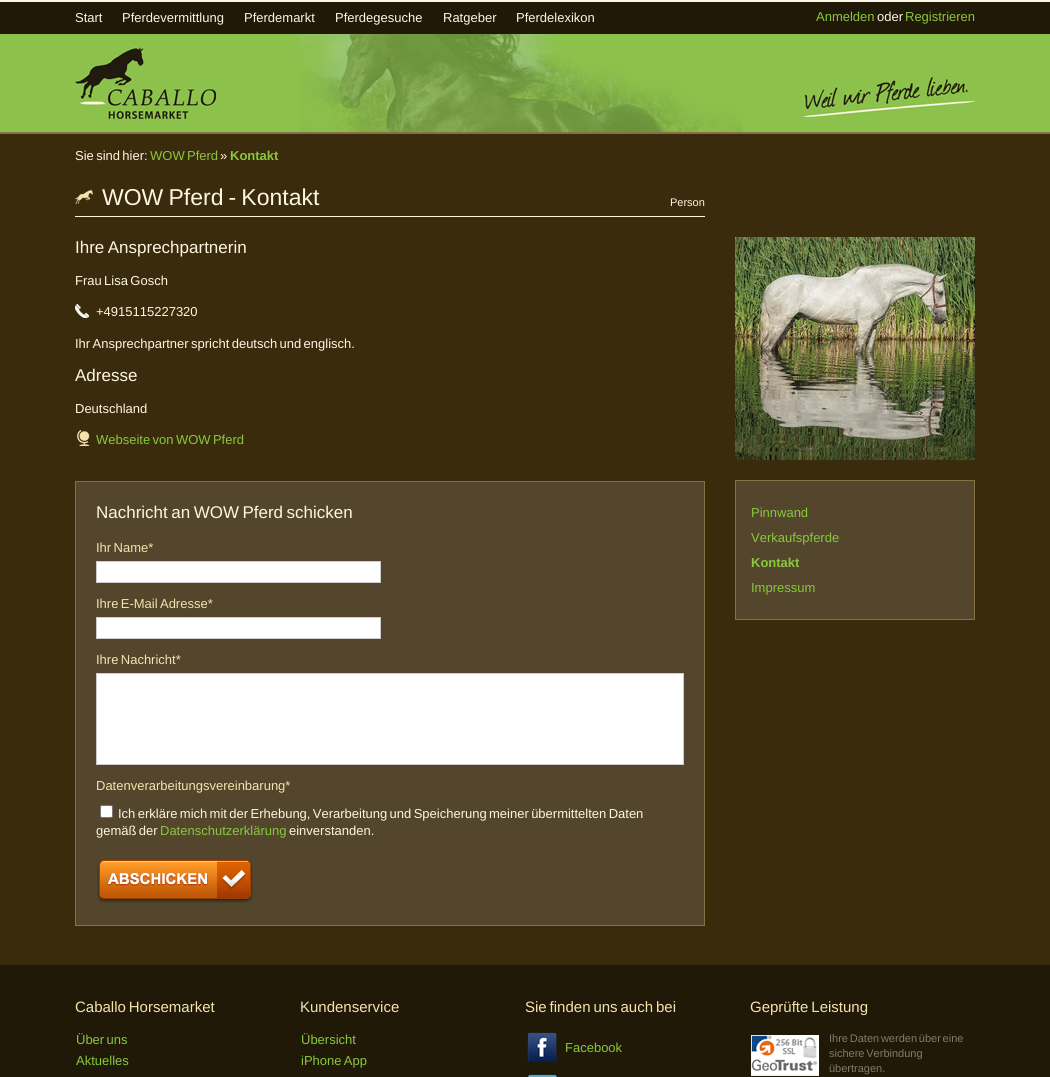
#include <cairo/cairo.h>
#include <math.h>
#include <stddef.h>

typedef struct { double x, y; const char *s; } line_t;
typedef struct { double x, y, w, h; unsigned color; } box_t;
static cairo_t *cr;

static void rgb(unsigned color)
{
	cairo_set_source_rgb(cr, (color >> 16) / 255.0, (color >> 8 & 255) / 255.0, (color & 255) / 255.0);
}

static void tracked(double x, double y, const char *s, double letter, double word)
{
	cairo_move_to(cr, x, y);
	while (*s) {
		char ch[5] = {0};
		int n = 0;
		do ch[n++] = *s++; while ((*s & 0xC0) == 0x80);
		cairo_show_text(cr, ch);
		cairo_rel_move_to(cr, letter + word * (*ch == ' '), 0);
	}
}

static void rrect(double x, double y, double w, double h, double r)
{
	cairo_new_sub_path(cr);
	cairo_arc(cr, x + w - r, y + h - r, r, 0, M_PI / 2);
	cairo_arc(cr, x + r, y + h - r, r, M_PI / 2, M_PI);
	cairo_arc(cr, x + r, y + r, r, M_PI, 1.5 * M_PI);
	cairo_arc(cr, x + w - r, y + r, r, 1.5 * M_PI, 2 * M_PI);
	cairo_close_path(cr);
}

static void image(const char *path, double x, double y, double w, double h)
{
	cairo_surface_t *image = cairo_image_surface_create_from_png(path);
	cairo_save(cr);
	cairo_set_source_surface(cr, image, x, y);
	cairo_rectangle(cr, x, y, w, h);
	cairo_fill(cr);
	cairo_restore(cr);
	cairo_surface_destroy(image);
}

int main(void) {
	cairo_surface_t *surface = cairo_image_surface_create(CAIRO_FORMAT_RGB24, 1050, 1077);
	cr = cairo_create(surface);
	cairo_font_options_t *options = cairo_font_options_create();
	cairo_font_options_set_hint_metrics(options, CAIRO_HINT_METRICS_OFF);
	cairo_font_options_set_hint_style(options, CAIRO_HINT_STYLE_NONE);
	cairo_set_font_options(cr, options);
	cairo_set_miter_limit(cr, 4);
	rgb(0x211907);
	cairo_paint(cr);
	{
		static const box_t items[] = {
			{0, 0, 1050, 2, 0xfef6e2},
			{0, 34, 1050, 98, 0x8cc14b},
			{0, 132, 1050, 2, 0x867146},
		};
		for (size_t i = 0; i < sizeof items / sizeof *items; i++) {
			rgb(items[i].color);
			cairo_rectangle(cr, items[i].x, items[i].y, items[i].w, items[i].h);
			cairo_fill(cr);
		}
	}
	image("img/1.png", 300, 34, 443, 98);
	image("img/2.png", 75, 47, 141, 72);
	image("img/3.png", 801, 77, 174, 40);
	rgb(0x3a2b0d);
	cairo_rectangle(cr, 0, 134, 1050, 831);
	cairo_fill(cr);
	rgb(0xfef6e2);
	cairo_rectangle(cr, 75, 216, 630, 1);
	cairo_fill(cr);
	image("img/4.png", 75, 190, 18, 14);
	image("img/5.png", 75, 304, 14, 14);
	image("img/6.png", 77, 430, 13, 16);
	rgb(0x53462c);
	cairo_rectangle(cr, 75.5, 481.5, 629, 444);
	cairo_fill_preserve(cr);
	rgb(0x867146);
	cairo_set_line_width(cr, 1);
	cairo_stroke(cr);
	rgb(0xffffff);
	cairo_rectangle(cr, 96.5, 561.5, 284, 21);
	cairo_fill_preserve(cr);
	rgb(0xcccccc);
	cairo_stroke(cr);
	rgb(0xffffff);
	cairo_rectangle(cr, 96.5, 617.5, 284, 21);
	cairo_fill_preserve(cr);
	rgb(0xcccccc);
	cairo_stroke(cr);
	rgb(0xffffff);
	cairo_rectangle(cr, 96.5, 673.5, 587, 91);
	cairo_fill_preserve(cr);
	rgb(0xcccccc);
	cairo_stroke(cr);
	rgb(0xffffff);
	rrect(100.5, 805.5, 12, 12, 1.5);
	cairo_fill_preserve(cr);
	rgb(0x767676);
	cairo_stroke(cr);
	image("img/7.png", 97, 860, 156, 43);
	image("img/8.png", 735, 237, 240, 223);
	rgb(0x53462c);
	cairo_rectangle(cr, 735.5, 480.5, 239, 139);
	cairo_fill_preserve(cr);
	rgb(0x867146);
	cairo_stroke(cr);
	image("img/9.png", 527, 1032, 31, 30);
	image("img/10.png", 527, 1073, 31, 4);
	image("img/11.png", 751, 1035, 68, 41);
	cairo_select_font_face(cr, "Liberation Sans", CAIRO_FONT_SLANT_NORMAL, CAIRO_FONT_WEIGHT_NORMAL);
	cairo_set_font_size(cr, 13);
	rgb(0xfef6e2);
	{
		static const line_t items[] = {
			{75, 22, "Start"},
			{122, 22, "Pferdevermittlung"},
			{244, 22, "Pferdemarkt"},
			{335, 22, "Pferdegesuche"},
			{443, 22, "Ratgeber"},
			{516, 22, "Pferdelexikon"},
		};
		for (size_t i = 0; i < sizeof items / sizeof *items; i++) {
			cairo_move_to(cr, items[i].x, items[i].y);
			cairo_show_text(cr, items[i].s);
		}
	}
	rgb(0x88c83c);
	cairo_move_to(cr, 816, 21);
	cairo_show_text(cr, "Anmelden");
	rgb(0xfef6e2);
	cairo_move_to(cr, 877, 21);
	cairo_show_text(cr, "oder");
	rgb(0x88c83c);
	cairo_move_to(cr, 905, 21);
	cairo_show_text(cr, "Registrieren");
	rgb(0xfef6e2);
	tracked(75, 160, "Sie sind hier:", 0, -1.25);
	rgb(0x88c83c);
	tracked(150, 160, "WOW Pferd", 0, -1.25);
	rgb(0xfef6e2);
	cairo_move_to(cr, 220, 160);
	cairo_show_text(cr, "»");
	cairo_select_font_face(cr, "Liberation Sans", CAIRO_FONT_SLANT_NORMAL, CAIRO_FONT_WEIGHT_BOLD);
	rgb(0x88c83c);
	cairo_move_to(cr, 230, 160);
	cairo_show_text(cr, "Kontakt");
	cairo_select_font_face(cr, "Liberation Sans", CAIRO_FONT_SLANT_NORMAL, CAIRO_FONT_WEIGHT_NORMAL);
	cairo_set_font_size(cr, 23);
	rgb(0xfef6e2);
	tracked(102, 205, "WOW Pferd - Kontakt", 0, -1.25);
	cairo_set_font_size(cr, 11);
	cairo_move_to(cr, 670, 206);
	cairo_show_text(cr, "Person");
	cairo_set_font_size(cr, 17);
	tracked(75, 253, "Ihre Ansprechpartnerin", 0, -1.25);
	cairo_set_font_size(cr, 13);
	tracked(75, 285, "Frau Lisa Gosch", 0, -1.25);
	cairo_move_to(cr, 96, 316);
	cairo_show_text(cr, "+4915115227320");
	tracked(75, 348, "Ihr Ansprechpartner spricht deutsch und englisch.", 0, -1.25);
	cairo_set_font_size(cr, 17);
	cairo_move_to(cr, 75, 381);
	cairo_show_text(cr, "Adresse");
	cairo_set_font_size(cr, 13);
	cairo_move_to(cr, 75, 413);
	cairo_show_text(cr, "Deutschland");
	rgb(0x88c83c);
	tracked(96, 444, "Webseite von WOW Pferd", 0, -1.25);
	cairo_set_font_size(cr, 17);
	rgb(0xfef6e2);
	tracked(96, 518, "Nachricht an WOW Pferd schicken", 0, -1.25);
	cairo_set_font_size(cr, 13);
	rgb(0xf4e3ad);
	{
		static const line_t items[] = {
			{96, 552, "Ihr Name*"},
			{96, 608, "Ihre E-Mail Adresse*"},
			{96, 664, "Ihre Nachricht*"},
		};
		for (size_t i = 0; i < sizeof items / sizeof *items; i++) {
			tracked(items[i].x, items[i].y, items[i].s, 0, -1.25);
		}
	}
	cairo_move_to(cr, 96, 790);
	cairo_show_text(cr, "Datenverarbeitungsvereinbarung*");
	rgb(0xfef6e2);
	tracked(118, 818, "Ich erkläre mich mit der Erhebung, Verarbeitung und Speicherung meiner übermittelten Daten", 0, -1.25);
	tracked(96, 835, "gemäß der", 0, -1.25);
	rgb(0x88c83c);
	cairo_move_to(cr, 160, 835);
	cairo_show_text(cr, "Datenschutzerklärung");
	rgb(0xfef6e2);
	cairo_move_to(cr, 289, 835);
	cairo_show_text(cr, "einverstanden.");
	rgb(0x88c83c);
	cairo_move_to(cr, 751, 517);
	cairo_show_text(cr, "Pinnwand");
	cairo_move_to(cr, 751, 542);
	cairo_show_text(cr, "Verkaufspferde");
	cairo_select_font_face(cr, "Liberation Sans", CAIRO_FONT_SLANT_NORMAL, CAIRO_FONT_WEIGHT_BOLD);
	cairo_move_to(cr, 751, 567);
	cairo_show_text(cr, "Kontakt");
	cairo_select_font_face(cr, "Liberation Sans", CAIRO_FONT_SLANT_NORMAL, CAIRO_FONT_WEIGHT_NORMAL);
	cairo_move_to(cr, 751, 592);
	cairo_show_text(cr, "Impressum");
	cairo_set_font_size(cr, 15);
	rgb(0xf4e3ad);
	tracked(75, 1012, "Caballo Horsemarket", 0, -1.25);
	cairo_set_font_size(cr, 13);
	rgb(0x88c83c);
	tracked(76, 1044, "Über uns", 0, -1.25);
	cairo_move_to(cr, 76, 1065);
	cairo_show_text(cr, "Aktuelles");
	cairo_set_font_size(cr, 15);
	rgb(0xf4e3ad);
	cairo_move_to(cr, 300, 1012);
	cairo_show_text(cr, "Kundenservice");
	cairo_set_font_size(cr, 13);
	rgb(0x88c83c);
	cairo_move_to(cr, 301, 1044);
	cairo_show_text(cr, "Übersicht");
	tracked(301, 1065, "iPhone App", 0, -1.25);
	cairo_set_font_size(cr, 15);
	rgb(0xf4e3ad);
	tracked(525, 1012, "Sie finden uns auch bei", 0, -1.25);
	cairo_set_font_size(cr, 13);
	rgb(0x88c83c);
	cairo_move_to(cr, 565, 1052);
	cairo_show_text(cr, "Facebook");
	cairo_set_font_size(cr, 15);
	rgb(0xf4e3ad);
	tracked(750, 1012, "Geprüfte Leistung", 0, -1.25);
	cairo_set_font_size(cr, 11);
	rgb(0x7e7b71);
	tracked(829, 1042, "Ihre Daten werden über eine", 0, -1.25);
	tracked(829, 1057, "sichere Verbindung", 0, -1.25);
	cairo_move_to(cr, 829, 1072);
	cairo_show_text(cr, "übertragen.");
	cairo_surface_write_to_png(surface, "page.png");
	cairo_font_options_destroy(options);
	cairo_destroy(cr);
	cairo_surface_destroy(surface);
	return 0;
}
